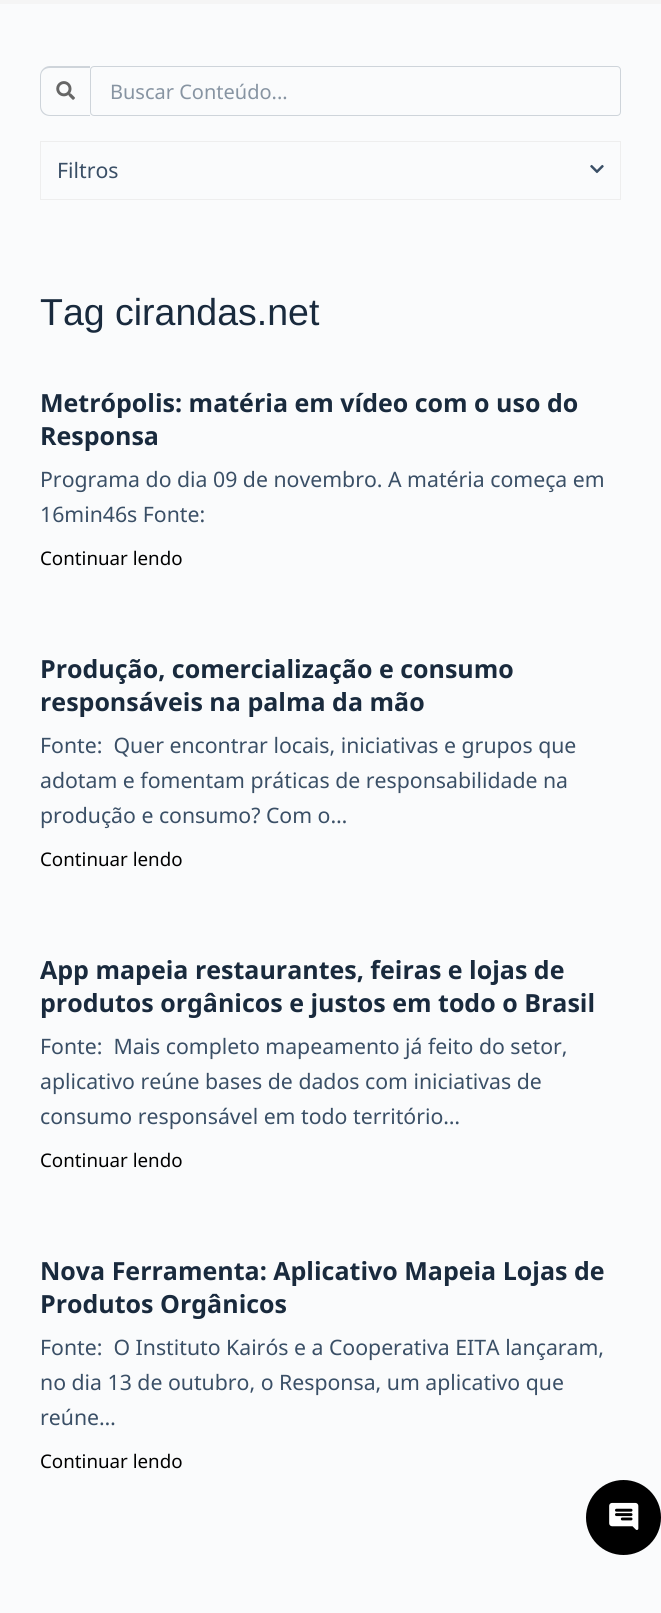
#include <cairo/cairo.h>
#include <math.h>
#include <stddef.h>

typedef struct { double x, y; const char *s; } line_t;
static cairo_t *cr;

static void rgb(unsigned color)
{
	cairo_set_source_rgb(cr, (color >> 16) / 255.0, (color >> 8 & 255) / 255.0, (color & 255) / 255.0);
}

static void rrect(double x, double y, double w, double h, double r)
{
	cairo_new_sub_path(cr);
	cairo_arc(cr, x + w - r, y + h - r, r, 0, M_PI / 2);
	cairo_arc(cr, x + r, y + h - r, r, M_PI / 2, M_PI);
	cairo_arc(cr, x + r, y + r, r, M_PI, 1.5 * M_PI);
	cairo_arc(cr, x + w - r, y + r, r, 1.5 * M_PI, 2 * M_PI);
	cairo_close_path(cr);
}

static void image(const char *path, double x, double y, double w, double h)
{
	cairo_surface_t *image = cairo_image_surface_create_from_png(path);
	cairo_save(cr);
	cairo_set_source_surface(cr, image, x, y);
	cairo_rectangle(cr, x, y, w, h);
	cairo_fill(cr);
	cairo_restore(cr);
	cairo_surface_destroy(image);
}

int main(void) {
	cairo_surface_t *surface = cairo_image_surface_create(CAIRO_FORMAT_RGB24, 661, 1613);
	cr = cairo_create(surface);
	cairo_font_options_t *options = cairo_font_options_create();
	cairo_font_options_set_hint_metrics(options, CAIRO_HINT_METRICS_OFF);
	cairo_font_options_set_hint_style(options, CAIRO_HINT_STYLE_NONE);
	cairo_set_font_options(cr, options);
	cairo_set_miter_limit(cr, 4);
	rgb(0xfafbfc);
	cairo_paint(cr);
	rgb(0xf5f5f5);
	cairo_rectangle(cr, 0, 0, 661, 4);
	cairo_fill(cr);
	rgb(0xced4da);
	cairo_set_fill_rule(cr, CAIRO_FILL_RULE_EVEN_ODD);
	cairo_new_path(cr);
	cairo_move_to(cr, 50, 66);
	cairo_line_to(cr, 90, 66);
	cairo_line_to(cr, 90, 116);
	cairo_line_to(cr, 50, 116);
	cairo_curve_to(cr, 44, 116, 40, 112, 40, 106);
	cairo_line_to(cr, 40, 76);
	cairo_curve_to(cr, 40, 71, 44, 66, 50, 66);
	cairo_close_path(cr);
	cairo_move_to(cr, 50, 68);
	cairo_line_to(cr, 90, 68);
	cairo_line_to(cr, 90, 115);
	cairo_line_to(cr, 50, 115);
	cairo_curve_to(cr, 45, 115, 41, 111, 41, 106);
	cairo_line_to(cr, 41, 76);
	cairo_curve_to(cr, 41, 71, 45, 68, 50, 68);
	cairo_close_path(cr);
	cairo_fill(cr);
	image("img/1.png", 56, 81, 19, 19);
	rrect(90.5, 66.5, 530, 49, 3.5);
	cairo_set_line_width(cr, 1);
	cairo_stroke(cr);
	cairo_rectangle(cr, 40.5, 141.5, 580, 58);
	rgb(0xeeeeee);
	cairo_stroke(cr);
	image("img/2.png", 590, 164, 14, 10);
	rgb(0x000000);
	cairo_arc(cr, 623.5, 1517.5, 37.5, 0, 2 * M_PI);
	cairo_fill(cr);
	image("img/3.png", 609, 1502, 30, 28);
	cairo_select_font_face(cr, "Noto Sans", CAIRO_FONT_SLANT_NORMAL, CAIRO_FONT_WEIGHT_NORMAL);
	cairo_set_font_size(cr, 20);
	rgb(0x8794a2);
	cairo_move_to(cr, 110, 99);
	cairo_show_text(cr, "Buscar Conteúdo...");
	cairo_set_font_size(cr, 21.25);
	rgb(0x3a4f66);
	cairo_move_to(cr, 57, 178);
	cairo_show_text(cr, "Filtros");
	cairo_select_font_face(cr, "Liberation Sans", CAIRO_FONT_SLANT_NORMAL, CAIRO_FONT_WEIGHT_NORMAL);
	cairo_set_font_size(cr, 37.5);
	rgb(0x192a3d);
	cairo_move_to(cr, 40, 325);
	cairo_show_text(cr, "Tag cirandas.net");
	cairo_select_font_face(cr, "Noto Sans", CAIRO_FONT_SLANT_NORMAL, CAIRO_FONT_WEIGHT_BOLD);
	cairo_set_font_size(cr, 25);
	cairo_move_to(cr, 40, 412);
	cairo_show_text(cr, "Metrópolis: matéria em vídeo com o uso do");
	cairo_move_to(cr, 40, 445);
	cairo_show_text(cr, "Responsa");
	cairo_select_font_face(cr, "Noto Sans", CAIRO_FONT_SLANT_NORMAL, CAIRO_FONT_WEIGHT_NORMAL);
	cairo_set_font_size(cr, 21.25);
	rgb(0x3a4f66);
	cairo_move_to(cr, 40, 487);
	cairo_show_text(cr, "Programa do dia 09 de novembro. A matéria começa em");
	cairo_move_to(cr, 40, 522);
	cairo_show_text(cr, "16min46s Fonte:");
	cairo_set_font_size(cr, 18.75);
	rgb(0x000000);
	cairo_move_to(cr, 40, 565);
	cairo_show_text(cr, "Continuar lendo");
	cairo_select_font_face(cr, "Noto Sans", CAIRO_FONT_SLANT_NORMAL, CAIRO_FONT_WEIGHT_BOLD);
	cairo_set_font_size(cr, 25);
	rgb(0x192a3d);
	cairo_move_to(cr, 40, 678);
	cairo_show_text(cr, "Produção, comercialização e consumo");
	cairo_move_to(cr, 40, 711);
	cairo_show_text(cr, "responsáveis na palma da mão");
	cairo_select_font_face(cr, "Noto Sans", CAIRO_FONT_SLANT_NORMAL, CAIRO_FONT_WEIGHT_NORMAL);
	cairo_set_font_size(cr, 21.25);
	rgb(0x3a4f66);
	{
		static const line_t items[] = {
			{40, 753, "Fonte:  Quer encontrar locais, iniciativas e grupos que"},
			{40, 788, "adotam e fomentam práticas de responsabilidade na"},
			{40, 823, "produção e consumo? Com o…"},
		};
		for (size_t i = 0; i < sizeof items / sizeof *items; i++) {
			cairo_move_to(cr, items[i].x, items[i].y);
			cairo_show_text(cr, items[i].s);
		}
	}
	cairo_set_font_size(cr, 18.75);
	rgb(0x000000);
	cairo_move_to(cr, 40, 866);
	cairo_show_text(cr, "Continuar lendo");
	cairo_select_font_face(cr, "Noto Sans", CAIRO_FONT_SLANT_NORMAL, CAIRO_FONT_WEIGHT_BOLD);
	cairo_set_font_size(cr, 25);
	rgb(0x192a3d);
	cairo_move_to(cr, 40, 979);
	cairo_show_text(cr, "App mapeia restaurantes, feiras e lojas de");
	cairo_move_to(cr, 40, 1012);
	cairo_show_text(cr, "produtos orgânicos e justos em todo o Brasil");
	cairo_select_font_face(cr, "Noto Sans", CAIRO_FONT_SLANT_NORMAL, CAIRO_FONT_WEIGHT_NORMAL);
	cairo_set_font_size(cr, 21.25);
	rgb(0x3a4f66);
	{
		static const line_t items[] = {
			{40, 1054, "Fonte:  Mais completo mapeamento já feito do setor,"},
			{40, 1089, "aplicativo reúne bases de dados com iniciativas de"},
			{40, 1124, "consumo responsável em todo território…"},
		};
		for (size_t i = 0; i < sizeof items / sizeof *items; i++) {
			cairo_move_to(cr, items[i].x, items[i].y);
			cairo_show_text(cr, items[i].s);
		}
	}
	cairo_set_font_size(cr, 18.75);
	rgb(0x000000);
	cairo_move_to(cr, 40, 1167);
	cairo_show_text(cr, "Continuar lendo");
	cairo_select_font_face(cr, "Noto Sans", CAIRO_FONT_SLANT_NORMAL, CAIRO_FONT_WEIGHT_BOLD);
	cairo_set_font_size(cr, 25);
	rgb(0x192a3d);
	cairo_move_to(cr, 40, 1280);
	cairo_show_text(cr, "Nova Ferramenta: Aplicativo Mapeia Lojas de");
	cairo_move_to(cr, 40, 1313);
	cairo_show_text(cr, "Produtos Orgânicos");
	cairo_select_font_face(cr, "Noto Sans", CAIRO_FONT_SLANT_NORMAL, CAIRO_FONT_WEIGHT_NORMAL);
	cairo_set_font_size(cr, 21.25);
	rgb(0x3a4f66);
	{
		static const line_t items[] = {
			{40, 1355, "Fonte:  O Instituto Kairós e a Cooperativa EITA lançaram,"},
			{40, 1390, "no dia 13 de outubro, o Responsa, um aplicativo que"},
			{40, 1425, "reúne…"},
		};
		for (size_t i = 0; i < sizeof items / sizeof *items; i++) {
			cairo_move_to(cr, items[i].x, items[i].y);
			cairo_show_text(cr, items[i].s);
		}
	}
	cairo_set_font_size(cr, 18.75);
	rgb(0x000000);
	cairo_move_to(cr, 40, 1468);
	cairo_show_text(cr, "Continuar lendo");
	cairo_surface_write_to_png(surface, "page.png");
	cairo_font_options_destroy(options);
	cairo_destroy(cr);
	cairo_surface_destroy(surface);
	return 0;
}
